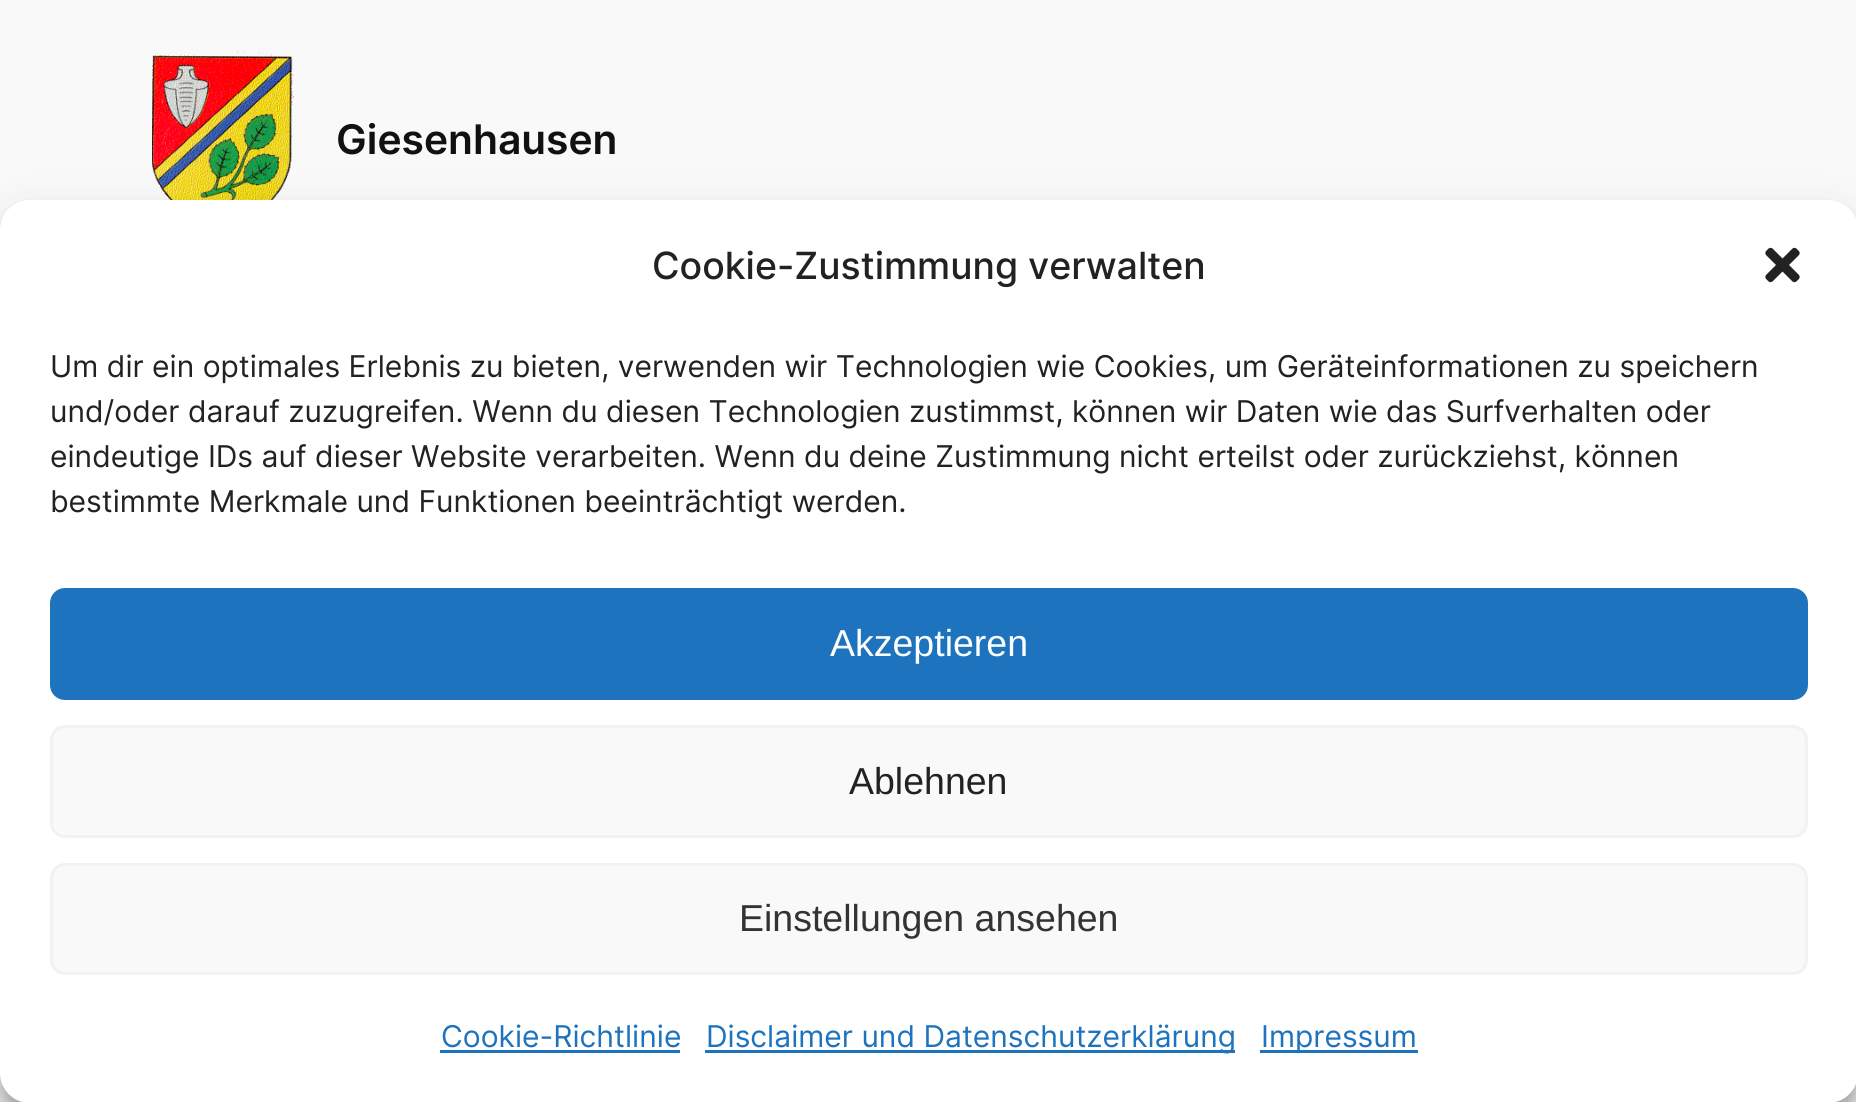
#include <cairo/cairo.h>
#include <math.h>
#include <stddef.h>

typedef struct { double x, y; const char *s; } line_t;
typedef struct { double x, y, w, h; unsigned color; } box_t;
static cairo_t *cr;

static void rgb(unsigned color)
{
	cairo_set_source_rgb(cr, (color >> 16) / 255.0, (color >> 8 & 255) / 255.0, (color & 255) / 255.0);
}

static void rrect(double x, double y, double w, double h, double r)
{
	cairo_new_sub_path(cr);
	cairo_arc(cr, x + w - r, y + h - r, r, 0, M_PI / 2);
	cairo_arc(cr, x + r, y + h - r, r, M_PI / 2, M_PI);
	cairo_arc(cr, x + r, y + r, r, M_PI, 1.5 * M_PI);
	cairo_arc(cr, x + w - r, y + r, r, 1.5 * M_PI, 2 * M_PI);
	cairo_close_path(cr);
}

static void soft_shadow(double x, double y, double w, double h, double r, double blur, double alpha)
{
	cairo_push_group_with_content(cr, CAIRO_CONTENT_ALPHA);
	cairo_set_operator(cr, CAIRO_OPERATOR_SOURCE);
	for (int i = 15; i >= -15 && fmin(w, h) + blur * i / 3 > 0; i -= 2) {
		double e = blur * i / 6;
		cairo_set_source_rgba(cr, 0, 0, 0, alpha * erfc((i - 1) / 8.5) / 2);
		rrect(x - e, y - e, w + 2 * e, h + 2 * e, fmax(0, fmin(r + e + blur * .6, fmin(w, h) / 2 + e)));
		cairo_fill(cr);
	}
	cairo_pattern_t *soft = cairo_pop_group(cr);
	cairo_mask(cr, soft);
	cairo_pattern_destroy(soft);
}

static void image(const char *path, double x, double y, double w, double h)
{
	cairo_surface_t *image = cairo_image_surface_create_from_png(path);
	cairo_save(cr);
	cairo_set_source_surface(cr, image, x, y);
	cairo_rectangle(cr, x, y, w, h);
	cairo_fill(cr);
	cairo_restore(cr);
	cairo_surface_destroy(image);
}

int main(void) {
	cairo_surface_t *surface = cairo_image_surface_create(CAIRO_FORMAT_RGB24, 1856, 1102);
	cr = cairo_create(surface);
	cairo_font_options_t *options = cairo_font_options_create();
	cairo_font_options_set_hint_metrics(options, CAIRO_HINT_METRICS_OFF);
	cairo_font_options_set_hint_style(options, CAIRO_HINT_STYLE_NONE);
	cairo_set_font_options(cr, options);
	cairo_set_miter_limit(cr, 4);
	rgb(0xf9f9f9);
	cairo_paint(cr);
	image("img/1.png", 152, 51, 142, 149);
	rgb(0x000000);
	soft_shadow(0, 215, 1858, 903, 30, 7.5, 0.23);
	soft_shadow(0, 225, 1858, 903, 30, 25, 0.19);
	rgb(0xffffff);
	rrect(0, 200, 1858, 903, 30);
	cairo_fill(cr);
	image("img/2.png", 1765, 247, 35, 36);
	rgb(0x1e73be);
	rrect(51.5, 589.5, 1755, 109, 13.5);
	cairo_fill_preserve(cr);
	cairo_set_line_width(cr, 3);
	cairo_stroke(cr);
	rgb(0xf9f9f9);
	rrect(51.5, 726.5, 1755, 110, 13.5);
	cairo_fill_preserve(cr);
	rgb(0xf2f2f2);
	cairo_stroke(cr);
	rgb(0xf9f9f9);
	rrect(51.5, 864.5, 1755, 109, 13.5);
	cairo_fill_preserve(cr);
	rgb(0xf2f2f2);
	cairo_stroke(cr);
	{
		static const box_t items[] = {
			{440, 1050, 240, 3, 0x1e73be},
			{705, 1050, 530, 3, 0x1e73be},
			{1260, 1050, 158, 3, 0x1e73be},
		};
		for (size_t i = 0; i < sizeof items / sizeof *items; i++) {
			rgb(items[i].color);
			cairo_rectangle(cr, items[i].x, items[i].y, items[i].w, items[i].h);
			cairo_fill(cr);
		}
	}
	cairo_select_font_face(cr, "Inter SemiBold", CAIRO_FONT_SLANT_NORMAL, CAIRO_FONT_WEIGHT_NORMAL);
	cairo_set_font_size(cr, 40.75);
	rgb(0x111111);
	cairo_move_to(cr, 336, 154);
	cairo_show_text(cr, "Giesenhausen");
	cairo_select_font_face(cr, "Inter Medium", CAIRO_FONT_SLANT_NORMAL, CAIRO_FONT_WEIGHT_NORMAL);
	cairo_set_font_size(cr, 37.5);
	rgb(0x222222);
	cairo_move_to(cr, 652, 279);
	cairo_show_text(cr, "Cookie-Zustimmung verwalten");
	cairo_select_font_face(cr, "Inter", CAIRO_FONT_SLANT_NORMAL, CAIRO_FONT_WEIGHT_NORMAL);
	cairo_set_font_size(cr, 30);
	{
		static const line_t items[] = {
			{50, 377, "Um dir ein optimales Erlebnis zu bieten, verwenden wir Technologien wie Cookies, um Geräteinformationen zu speichern"},
			{50, 422, "und/oder darauf zuzugreifen. Wenn du diesen Technologien zustimmst, können wir Daten wie das Surfverhalten oder"},
			{50, 467, "eindeutige IDs auf dieser Website verarbeiten. Wenn du deine Zustimmung nicht erteilst oder zurückziehst, können"},
			{50, 512, "bestimmte Merkmale und Funktionen beeinträchtigt werden."},
		};
		for (size_t i = 0; i < sizeof items / sizeof *items; i++) {
			cairo_move_to(cr, items[i].x, items[i].y);
			cairo_show_text(cr, items[i].s);
		}
	}
	cairo_select_font_face(cr, "Liberation Sans", CAIRO_FONT_SLANT_NORMAL, CAIRO_FONT_WEIGHT_NORMAL);
	cairo_set_font_size(cr, 37.5);
	rgb(0xffffff);
	cairo_move_to(cr, 830, 656);
	cairo_show_text(cr, "Akzeptieren");
	rgb(0x222222);
	cairo_move_to(cr, 849, 794);
	cairo_show_text(cr, "Ablehnen");
	rgb(0x333333);
	cairo_move_to(cr, 739, 931);
	cairo_show_text(cr, "Einstellungen ansehen");
	cairo_select_font_face(cr, "Inter", CAIRO_FONT_SLANT_NORMAL, CAIRO_FONT_WEIGHT_NORMAL);
	cairo_set_font_size(cr, 30);
	rgb(0x1e73be);
	{
		static const line_t items[] = {
			{441, 1047, "Cookie-Richtlinie"},
			{706, 1047, "Disclaimer und Datenschutzerklärung"},
			{1261, 1047, "Impressum"},
		};
		for (size_t i = 0; i < sizeof items / sizeof *items; i++) {
			cairo_move_to(cr, items[i].x, items[i].y);
			cairo_show_text(cr, items[i].s);
		}
	}
	cairo_surface_write_to_png(surface, "page.png");
	cairo_font_options_destroy(options);
	cairo_destroy(cr);
	cairo_surface_destroy(surface);
	return 0;
}
